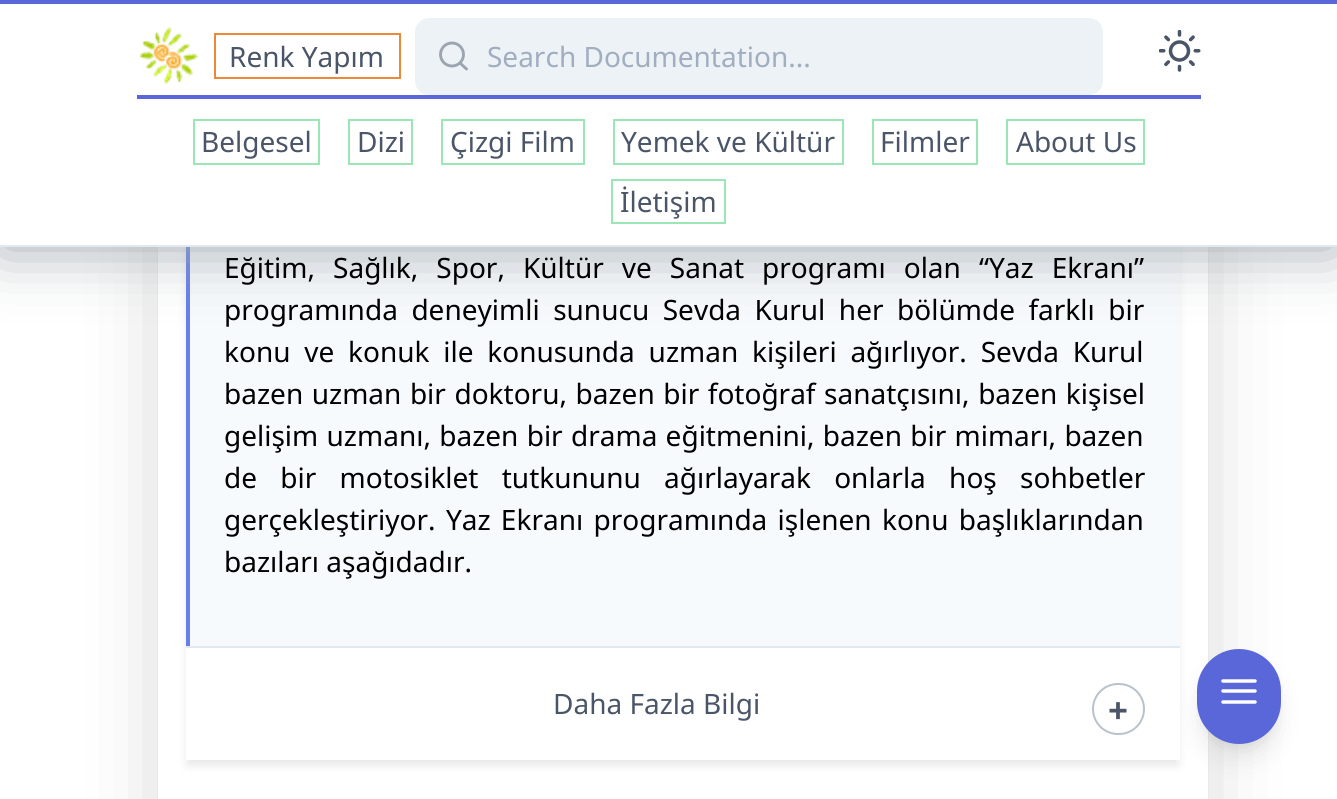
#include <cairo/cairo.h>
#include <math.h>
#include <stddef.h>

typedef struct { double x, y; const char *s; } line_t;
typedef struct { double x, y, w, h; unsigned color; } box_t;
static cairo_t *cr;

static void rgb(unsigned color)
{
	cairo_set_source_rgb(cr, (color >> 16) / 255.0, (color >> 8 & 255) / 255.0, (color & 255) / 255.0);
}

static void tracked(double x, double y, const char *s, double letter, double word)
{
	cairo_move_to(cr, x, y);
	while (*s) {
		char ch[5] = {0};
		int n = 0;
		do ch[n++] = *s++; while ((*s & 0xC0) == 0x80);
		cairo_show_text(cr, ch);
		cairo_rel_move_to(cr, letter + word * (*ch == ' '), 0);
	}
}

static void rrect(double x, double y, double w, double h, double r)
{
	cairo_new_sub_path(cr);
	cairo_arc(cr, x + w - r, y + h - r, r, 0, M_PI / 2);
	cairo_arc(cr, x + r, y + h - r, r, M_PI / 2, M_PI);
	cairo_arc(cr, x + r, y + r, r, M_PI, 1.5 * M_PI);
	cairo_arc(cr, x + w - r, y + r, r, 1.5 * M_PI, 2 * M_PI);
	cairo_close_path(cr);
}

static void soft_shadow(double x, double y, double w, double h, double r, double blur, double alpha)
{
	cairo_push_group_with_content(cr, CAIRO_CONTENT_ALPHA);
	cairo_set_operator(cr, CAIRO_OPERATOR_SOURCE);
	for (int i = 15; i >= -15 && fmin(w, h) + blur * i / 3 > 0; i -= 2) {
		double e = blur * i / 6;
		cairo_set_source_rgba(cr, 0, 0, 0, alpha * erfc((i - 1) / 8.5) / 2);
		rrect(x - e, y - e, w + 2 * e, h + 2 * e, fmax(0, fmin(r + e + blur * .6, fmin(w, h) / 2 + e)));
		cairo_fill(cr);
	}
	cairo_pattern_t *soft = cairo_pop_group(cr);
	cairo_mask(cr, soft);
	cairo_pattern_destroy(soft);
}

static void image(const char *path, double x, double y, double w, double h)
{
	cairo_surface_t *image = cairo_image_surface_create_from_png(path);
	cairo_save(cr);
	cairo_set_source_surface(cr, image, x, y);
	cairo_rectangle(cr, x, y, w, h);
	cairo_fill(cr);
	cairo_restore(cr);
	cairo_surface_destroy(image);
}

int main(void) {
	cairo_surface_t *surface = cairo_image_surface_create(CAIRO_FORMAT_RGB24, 1337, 799);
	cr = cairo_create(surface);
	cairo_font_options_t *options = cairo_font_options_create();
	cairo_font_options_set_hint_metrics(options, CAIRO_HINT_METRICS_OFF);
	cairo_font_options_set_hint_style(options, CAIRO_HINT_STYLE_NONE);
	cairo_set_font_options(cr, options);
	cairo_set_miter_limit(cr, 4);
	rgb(0xffffff);
	cairo_paint(cr);
	cairo_save(cr);
	cairo_set_fill_rule(cr, CAIRO_FILL_RULE_EVEN_ODD);
	cairo_new_path(cr);
	cairo_move_to(cr, 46, 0);
	cairo_line_to(cr, 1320, 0);
	cairo_line_to(cr, 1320, 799);
	cairo_line_to(cr, 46, 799);
	cairo_close_path(cr);
	cairo_move_to(cr, 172, -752);
	cairo_line_to(cr, 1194, -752);
	cairo_curve_to(cr, 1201.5, -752, 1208, -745.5, 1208, -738);
	cairo_line_to(cr, 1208, 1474);
	cairo_line_to(cr, 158, 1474);
	cairo_line_to(cr, 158, -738);
	cairo_curve_to(cr, 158, -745.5, 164.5, -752, 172, -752);
	cairo_close_path(cr);
	cairo_clip(cr);
	rgb(0x000000);
	soft_shadow(179, -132, 1008, 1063, 0, 44, 0.25);
	cairo_restore(cr);
	cairo_save(cr);
	cairo_set_fill_rule(cr, CAIRO_FILL_RULE_EVEN_ODD);
	cairo_new_path(cr);
	cairo_move_to(cr, 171, 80);
	cairo_line_to(cr, 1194, 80);
	cairo_line_to(cr, 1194, 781);
	cairo_line_to(cr, 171, 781);
	cairo_close_path(cr);
	cairo_move_to(cr, 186, 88);
	cairo_line_to(cr, 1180, 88);
	cairo_line_to(cr, 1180, 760);
	cairo_line_to(cr, 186, 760);
	cairo_close_path(cr);
	cairo_clip(cr);
	rgb(0x000000);
	soft_shadow(187, 96, 991, 669, 0, 5, 0.1);
	cairo_restore(cr);
	rgb(0xf7fafc);
	cairo_rectangle(cr, 190, 247, 990, 399);
	cairo_fill(cr);
	rgb(0x667eea);
	cairo_rectangle(cr, 186, 247, 4, 399);
	cairo_fill(cr);
	rgb(0x9da5ab);
	soft_shadow(0, 0, 1337, 247, 0, 31.5, 1);
	{
		static const box_t items[] = {
			{0, 4, 1337, 241, 0xffffff},
			{0, 245, 1337, 2, 0xe2e8f0},
			{0, 0, 1337, 4, 0x5a67d8},
		};
		for (size_t i = 0; i < sizeof items / sizeof *items; i++) {
			rgb(items[i].color);
			cairo_rectangle(cr, items[i].x, items[i].y, items[i].w, items[i].h);
			cairo_fill(cr);
		}
	}
	image("img/1.png", 139, 27, 60, 57);
	cairo_rectangle(cr, 215, 34, 185, 44);
	rgb(0xed8936);
	cairo_stroke(cr);
	rgb(0xedf2f7);
	rrect(417, 20, 684, 73, 12);
	cairo_fill_preserve(cr);
	cairo_set_line_width(cr, 4);
	cairo_stroke(cr);
	cairo_arc(cr, 452, 54.5, 11.5, 0, 2 * M_PI);
	rgb(0x9ca4b0);
	cairo_set_line_width(cr, 2.9);
	cairo_stroke(cr);
	cairo_new_path(cr);
	cairo_move_to(cr, 466.5, 69);
	cairo_line_to(cr, 460, 63);
	cairo_set_line_cap(cr, CAIRO_LINE_CAP_ROUND);
	cairo_set_line_join(cr, CAIRO_LINE_JOIN_ROUND);
	cairo_stroke(cr);
	image("img/2.png", 1159, 30, 42, 42);
	rgb(0x5a67d8);
	cairo_rectangle(cr, 137, 95, 1064, 4);
	cairo_fill(cr);
	cairo_rectangle(cr, 194, 120, 125, 44);
	rgb(0x9ae6b4);
	cairo_set_line_width(cr, 2);
	cairo_set_line_cap(cr, CAIRO_LINE_CAP_BUTT);
	cairo_set_line_join(cr, CAIRO_LINE_JOIN_MITER);
	cairo_stroke(cr);
	cairo_rectangle(cr, 349, 120, 63, 44);
	cairo_stroke(cr);
	cairo_rectangle(cr, 442, 120, 142, 44);
	cairo_stroke(cr);
	cairo_rectangle(cr, 614, 120, 229, 44);
	cairo_stroke(cr);
	cairo_rectangle(cr, 873, 120, 104, 44);
	cairo_stroke(cr);
	cairo_rectangle(cr, 1007, 120, 137, 44);
	cairo_stroke(cr);
	cairo_rectangle(cr, 612, 180, 113, 43);
	cairo_stroke(cr);
	rgb(0xe2e8f0);
	cairo_rectangle(cr, 186, 646, 994, 2);
	cairo_fill(cr);
	rrect(1093, 684, 51, 50, 25);
	rgb(0xb8c2cc);
	cairo_stroke(cr);
	rgb(0x000000);
	soft_shadow(1201, 660, 77, 87, 38.5, 5, 0.05);
	soft_shadow(1202, 672, 74, 84, 37, 13, 0.1);
	rgb(0x5a67d8);
	rrect(1197, 649, 84, 95, 42);
	cairo_fill(cr);
	cairo_new_path(cr);
	cairo_move_to(cr, 1223, 691);
	cairo_line_to(cr, 1255, 691);
	cairo_move_to(cr, 1223, 681);
	cairo_line_to(cr, 1255, 681);
	cairo_move_to(cr, 1223, 702);
	cairo_line_to(cr, 1255, 702);
	rgb(0xffffff);
	cairo_set_line_width(cr, 3.5);
	cairo_set_line_cap(cr, CAIRO_LINE_CAP_ROUND);
	cairo_set_line_join(cr, CAIRO_LINE_JOIN_ROUND);
	cairo_stroke(cr);
	cairo_select_font_face(cr, "Noto Sans", CAIRO_FONT_SLANT_NORMAL, CAIRO_FONT_WEIGHT_NORMAL);
	cairo_set_font_size(cr, 28);
	rgb(0x4a5568);
	cairo_move_to(cr, 229, 67);
	cairo_show_text(cr, "Renk Yapım");
	rgb(0xa0aec0);
	cairo_move_to(cr, 487, 67);
	cairo_show_text(cr, "Search Documentation...");
	rgb(0x4a5568);
	{
		static const line_t items[] = {
			{201, 152, "Belgesel"},
			{357, 152, "Dizi"},
			{450, 152, "Çizgi Film"},
			{621, 152, "Yemek ve Kültür"},
			{880, 152, "Filmler"},
			{1016, 152, "About Us"},
			{620, 212, "İletişim"},
		};
		for (size_t i = 0; i < sizeof items / sizeof *items; i++) {
			cairo_move_to(cr, items[i].x, items[i].y);
			cairo_show_text(cr, items[i].s);
		}
	}
	rgb(0x000000);
	tracked(224, 278, "Eğitim, Sağlık, Spor, Kültür ve Sanat programı olan “Yaz Ekranı”", 0, 10.75);
	tracked(224, 320, "programında deneyimli sunucu Sevda Kurul her bölümde farklı bir", 0, 6.25);
	tracked(224, 362, "konu ve konuk ile konusunda uzman kişileri ağırlıyor. Sevda Kurul", 0, 6.5);
	tracked(224, 404, "bazen uzman bir doktoru, bazen bir fotoğraf sanatçısını, bazen kişisel", 0, 1.25);
	tracked(224, 446, "gelişim uzmanı, bazen bir drama eğitmenini, bazen bir mimarı, bazen", 0, 1);
	tracked(224, 488, "de bir motosiklet tutkununu ağırlayarak onlarla hoş sohbetler", 0, 16);
	tracked(224, 530, "gerçekleştiriyor. Yaz Ekranı programında işlenen konu başlıklarından", 0, 3);
	cairo_move_to(cr, 224, 572);
	cairo_show_text(cr, "bazıları aşağıdadır.");
	rgb(0x4a5568);
	cairo_move_to(cr, 553, 714);
	cairo_show_text(cr, "Daha Fazla Bilgi");
	cairo_select_font_face(cr, "Noto Sans", CAIRO_FONT_SLANT_NORMAL, CAIRO_FONT_WEIGHT_BOLD);
	cairo_set_font_size(cr, 35);
	cairo_move_to(cr, 1108, 723);
	cairo_show_text(cr, "+");
	cairo_surface_write_to_png(surface, "page.png");
	cairo_font_options_destroy(options);
	cairo_destroy(cr);
	cairo_surface_destroy(surface);
	return 0;
}
